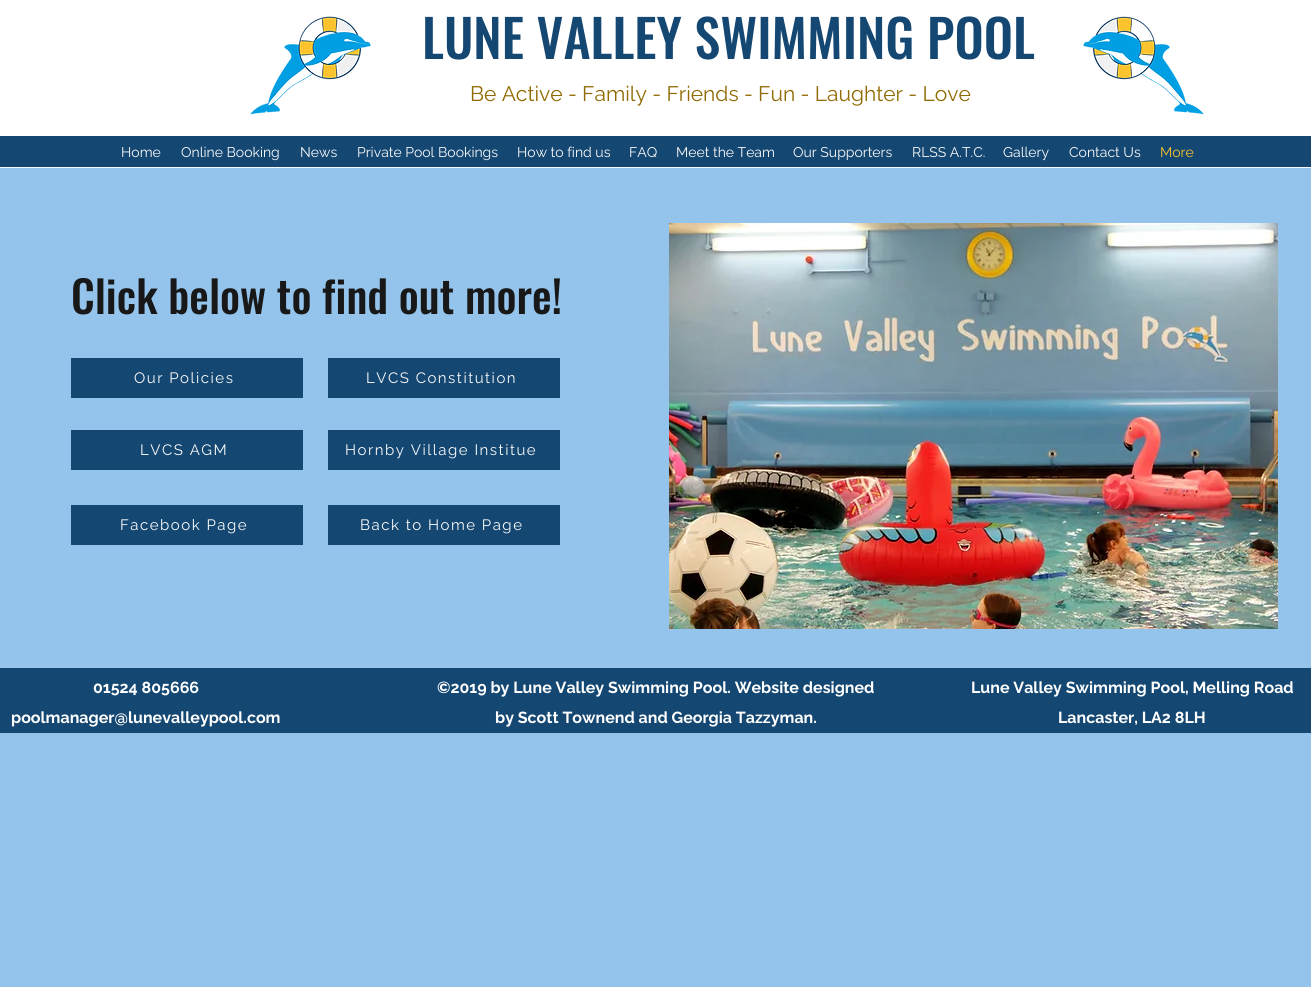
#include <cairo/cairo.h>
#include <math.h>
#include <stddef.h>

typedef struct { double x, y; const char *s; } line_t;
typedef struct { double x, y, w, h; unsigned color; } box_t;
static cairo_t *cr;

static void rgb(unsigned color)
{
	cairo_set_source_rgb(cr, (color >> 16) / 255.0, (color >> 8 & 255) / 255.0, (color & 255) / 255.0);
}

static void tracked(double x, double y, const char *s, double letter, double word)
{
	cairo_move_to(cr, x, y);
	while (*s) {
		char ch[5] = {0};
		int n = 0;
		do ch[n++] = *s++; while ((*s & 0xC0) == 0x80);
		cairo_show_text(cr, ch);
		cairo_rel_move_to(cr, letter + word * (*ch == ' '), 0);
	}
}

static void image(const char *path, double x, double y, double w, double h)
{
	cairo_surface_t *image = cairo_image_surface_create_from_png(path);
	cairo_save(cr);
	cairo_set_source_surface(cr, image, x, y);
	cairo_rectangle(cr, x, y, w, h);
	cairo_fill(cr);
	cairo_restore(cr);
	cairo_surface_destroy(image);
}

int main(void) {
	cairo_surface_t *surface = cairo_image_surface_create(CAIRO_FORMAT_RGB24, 1311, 987);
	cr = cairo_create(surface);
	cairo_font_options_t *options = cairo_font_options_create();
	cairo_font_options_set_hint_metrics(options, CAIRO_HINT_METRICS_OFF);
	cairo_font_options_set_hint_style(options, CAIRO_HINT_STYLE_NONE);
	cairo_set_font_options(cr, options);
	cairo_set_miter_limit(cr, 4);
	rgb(0x94c4ec);
	cairo_paint(cr);
	rgb(0xffffff);
	cairo_rectangle(cr, 0, 0, 1311, 136);
	cairo_fill(cr);
	image("img/1.png", 250, 16, 121, 99);
	image("img/2.png", 1083, 16, 121, 99);
	rgb(0x144772);
	cairo_rectangle(cr, 0, 136, 1311, 31);
	cairo_fill(cr);
	rgb(0xf9f9f9);
	cairo_rectangle(cr, 0, 167, 1311, 1);
	cairo_fill(cr);
	image("img/3.png", 669, 223, 609, 406);
	{
		static const box_t items[] = {
			{71, 358, 232, 40, 0x144772},
			{328, 358, 232, 40, 0x144772},
			{71, 430, 232, 40, 0x144772},
			{328, 430, 232, 40, 0x144772},
			{71, 505, 232, 40, 0x144772},
			{328, 505, 232, 40, 0x144772},
			{0, 668, 1311, 65, 0x144772},
		};
		for (size_t i = 0; i < sizeof items / sizeof *items; i++) {
			rgb(items[i].color);
			cairo_rectangle(cr, items[i].x, items[i].y, items[i].w, items[i].h);
			cairo_fill(cr);
		}
	}
	cairo_select_font_face(cr, "Oswald Medium", CAIRO_FONT_SLANT_NORMAL, CAIRO_FONT_WEIGHT_NORMAL);
	cairo_set_font_size(cr, 52);
	cairo_move_to(cr, 422, 59);
	cairo_show_text(cr, "LUNE VALLEY SWIMMING POOL");
	cairo_select_font_face(cr, "Raleway", CAIRO_FONT_SLANT_NORMAL, CAIRO_FONT_WEIGHT_NORMAL);
	cairo_set_font_size(cr, 21);
	rgb(0x906a03);
	cairo_move_to(cr, 470, 101);
	cairo_show_text(cr, "Be Active - Family - Friends - Fun - Laughter - Love");
	cairo_set_font_size(cr, 14);
	rgb(0xf9f9f9);
	{
		static const line_t items[] = {
			{121, 157, "Home"},
			{181, 157, "Online Booking"},
			{300, 157, "News"},
			{357, 157, "Private Pool Bookings"},
			{517, 157, "How to find us"},
			{629, 157, "FAQ"},
			{676, 157, "Meet the Team"},
			{793, 157, "Our Supporters"},
			{912, 157, "RLSS A.T.C."},
			{1003, 157, "Gallery"},
			{1069, 157, "Contact Us"},
		};
		for (size_t i = 0; i < sizeof items / sizeof *items; i++) {
			cairo_move_to(cr, items[i].x, items[i].y);
			cairo_show_text(cr, items[i].s);
		}
	}
	rgb(0xfac32c);
	cairo_move_to(cr, 1160, 157);
	cairo_show_text(cr, "More");
	cairo_select_font_face(cr, "Oswald Medium", CAIRO_FONT_SLANT_NORMAL, CAIRO_FONT_WEIGHT_NORMAL);
	cairo_set_font_size(cr, 44);
	rgb(0x181818);
	cairo_move_to(cr, 71, 314);
	cairo_show_text(cr, "Click below to find out more!");
	cairo_select_font_face(cr, "Raleway", CAIRO_FONT_SLANT_NORMAL, CAIRO_FONT_WEIGHT_NORMAL);
	cairo_set_font_size(cr, 15);
	rgb(0xf9f9f9);
	{
		static const line_t items[] = {
			{134, 383, "Our Policies"},
			{366, 383, "LVCS Constitution"},
			{140, 455, "LVCS AGM"},
			{345, 455, "Hornby Village Institue"},
			{120, 530, "Facebook Page"},
			{360, 530, "Back to Home Page"},
		};
		for (size_t i = 0; i < sizeof items / sizeof *items; i++) {
			tracked(items[i].x, items[i].y, items[i].s, 1.5, 0);
		}
	}
	cairo_select_font_face(cr, "Raleway", CAIRO_FONT_SLANT_NORMAL, CAIRO_FONT_WEIGHT_BOLD);
	cairo_set_font_size(cr, 16);
	rgb(0xffffff);
	{
		static const line_t items[] = {
			{93, 693, "01524 805666"},
			{11, 723, "poolmanager@lunevalleypool.com"},
			{437, 693, "©2019 by Lune Valley Swimming Pool. Website designed"},
			{495, 723, "by Scott Townend and Georgia Tazzyman."},
			{971, 693, "Lune Valley Swimming Pool, Melling Road"},
			{1058, 723, "Lancaster, LA2 8LH"},
		};
		for (size_t i = 0; i < sizeof items / sizeof *items; i++) {
			cairo_move_to(cr, items[i].x, items[i].y);
			cairo_show_text(cr, items[i].s);
		}
	}
	cairo_surface_write_to_png(surface, "page.png");
	cairo_font_options_destroy(options);
	cairo_destroy(cr);
	cairo_surface_destroy(surface);
	return 0;
}
